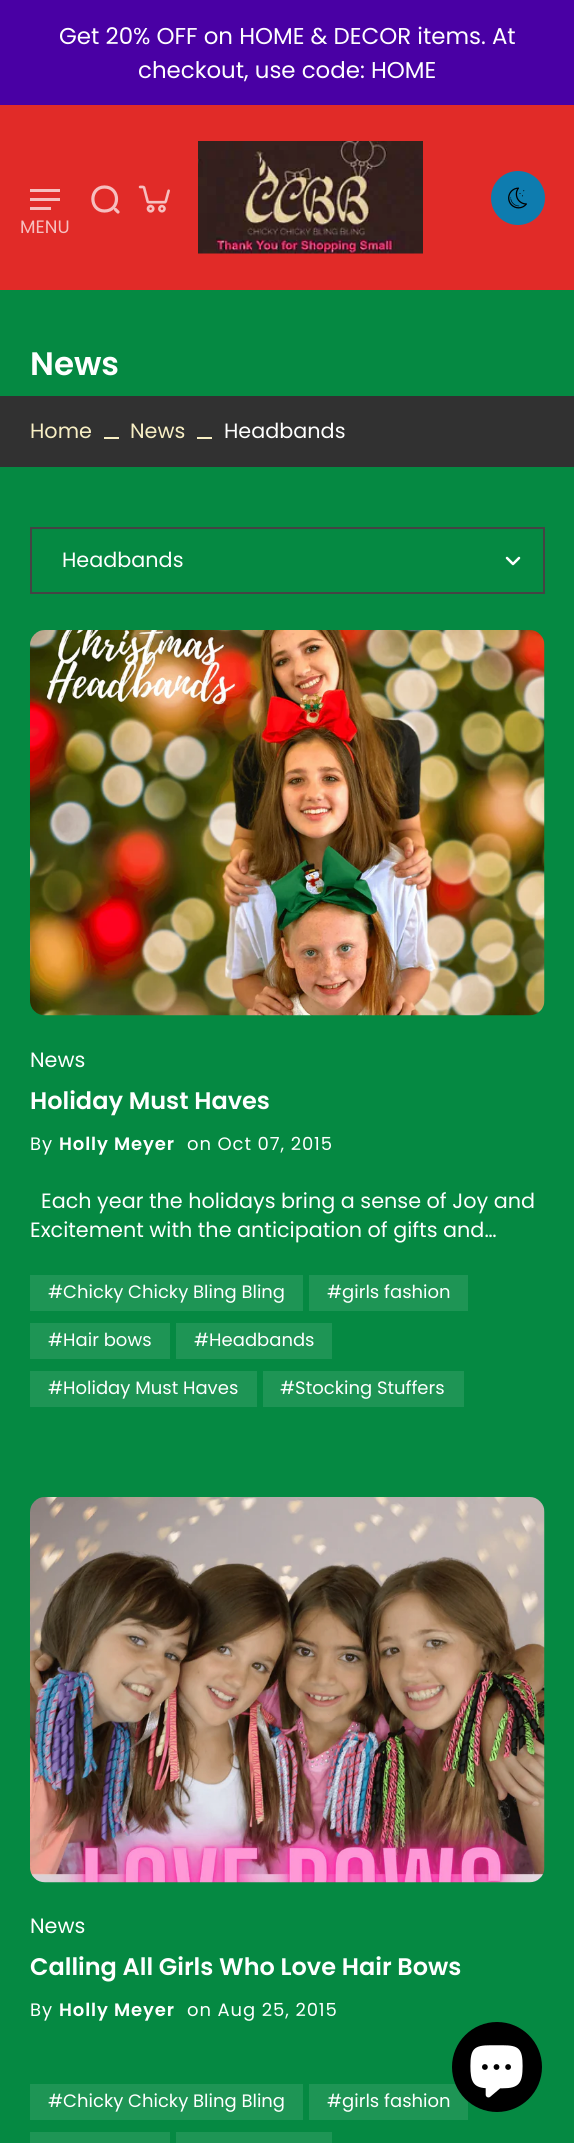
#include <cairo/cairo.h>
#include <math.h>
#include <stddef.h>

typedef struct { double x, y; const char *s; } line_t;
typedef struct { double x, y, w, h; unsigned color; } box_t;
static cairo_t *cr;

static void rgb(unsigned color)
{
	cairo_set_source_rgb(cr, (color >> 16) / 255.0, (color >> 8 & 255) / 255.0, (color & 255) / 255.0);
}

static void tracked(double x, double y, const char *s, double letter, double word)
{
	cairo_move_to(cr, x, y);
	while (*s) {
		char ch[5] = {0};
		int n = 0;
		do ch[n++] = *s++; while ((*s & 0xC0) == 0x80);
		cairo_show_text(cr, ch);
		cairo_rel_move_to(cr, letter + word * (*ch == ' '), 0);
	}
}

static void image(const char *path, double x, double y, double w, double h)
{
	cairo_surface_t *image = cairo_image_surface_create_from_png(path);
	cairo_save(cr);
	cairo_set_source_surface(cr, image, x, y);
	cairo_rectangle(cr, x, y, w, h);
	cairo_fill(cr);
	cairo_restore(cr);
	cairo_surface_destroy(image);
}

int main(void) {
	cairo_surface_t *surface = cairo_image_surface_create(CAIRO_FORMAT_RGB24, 574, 2143);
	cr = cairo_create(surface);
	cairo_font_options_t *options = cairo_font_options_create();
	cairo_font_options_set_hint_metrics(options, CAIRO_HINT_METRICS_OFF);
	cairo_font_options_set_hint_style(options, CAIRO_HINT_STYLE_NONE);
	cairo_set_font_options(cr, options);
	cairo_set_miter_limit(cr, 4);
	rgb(0x058942);
	cairo_paint(cr);
	rgb(0x4900a4);
	cairo_rectangle(cr, 0, 0, 574, 105);
	cairo_fill(cr);
	rgb(0xe12b28);
	cairo_rectangle(cr, 0, 105, 574, 185);
	cairo_fill(cr);
	image("img/1.png", 198, 141, 225, 113);
	cairo_new_path(cr);
	cairo_move_to(cr, 104.5, 211);
	cairo_curve_to(cr, 120.5, 211, 120.5, 187, 104.5, 187);
	cairo_curve_to(cr, 89, 187, 89, 211, 104.5, 211);
	cairo_close_path(cr);
	cairo_move_to(cr, 118, 212);
	cairo_line_to(cr, 115.5, 209.5);
	rgb(0xf6bfbf);
	cairo_set_line_width(cr, 3.2);
	cairo_set_line_cap(cr, CAIRO_LINE_CAP_ROUND);
	cairo_set_line_join(cr, CAIRO_LINE_JOIN_ROUND);
	cairo_stroke(cr);
	rgb(0x0e7caf);
	cairo_arc(cr, 518, 198, 27, 0, 2 * M_PI);
	cairo_fill(cr);
	image("img/2.png", 508, 187, 19, 22);
	image("img/3.png", 138, 185, 32, 28);
	image("img/4.png", 30, 189, 30, 21);
	{
		static const box_t items[] = {
			{0, 396, 574, 71, 0x313131},
			{104, 437, 15, 2, 0xf8efc4},
			{197, 437, 15, 2, 0xf8efc4},
		};
		for (size_t i = 0; i < sizeof items / sizeof *items; i++) {
			rgb(items[i].color);
			cairo_rectangle(cr, items[i].x, items[i].y, items[i].w, items[i].h);
			cairo_fill(cr);
		}
	}
	cairo_rectangle(cr, 31, 528, 513, 65);
	rgb(0x444444);
	cairo_set_line_width(cr, 2);
	cairo_set_line_cap(cr, CAIRO_LINE_CAP_BUTT);
	cairo_set_line_join(cr, CAIRO_LINE_JOIN_MITER);
	cairo_stroke(cr);
	cairo_new_path(cr);
	cairo_move_to(cr, 507, 558);
	cairo_line_to(cr, 513, 564);
	cairo_line_to(cr, 519, 558);
	rgb(0xffffff);
	cairo_set_line_width(cr, 2.5);
	cairo_set_line_cap(cr, CAIRO_LINE_CAP_ROUND);
	cairo_set_line_join(cr, CAIRO_LINE_JOIN_ROUND);
	cairo_stroke(cr);
	image("img/5.png", 30, 630, 515, 386);
	{
		static const box_t items[] = {
			{30, 1275, 273, 36, 0x1e9555},
			{309, 1275, 159, 36, 0x1e9555},
			{30, 1323, 140, 36, 0x1e9555},
			{176, 1323, 156, 36, 0x1e9555},
			{30, 1371, 227, 36, 0x1e9555},
			{263, 1371, 201, 36, 0x1e9555},
		};
		for (size_t i = 0; i < sizeof items / sizeof *items; i++) {
			rgb(items[i].color);
			cairo_rectangle(cr, items[i].x, items[i].y, items[i].w, items[i].h);
			cairo_fill(cr);
		}
	}
	image("img/6.png", 30, 1497, 515, 386);
	{
		static const box_t items[] = {
			{30, 2084, 273, 36, 0x1e9555},
			{309, 2084, 159, 36, 0x1e9555},
			{30, 2132, 140, 11, 0x1e9555},
			{176, 2132, 156, 11, 0x1e9555},
		};
		for (size_t i = 0; i < sizeof items / sizeof *items; i++) {
			rgb(items[i].color);
			cairo_rectangle(cr, items[i].x, items[i].y, items[i].w, items[i].h);
			cairo_fill(cr);
		}
	}
	rgb(0x000000);
	cairo_arc(cr, 497, 2067, 45, 0, 2 * M_PI);
	cairo_fill(cr);
	image("img/7.png", 470, 2045, 53, 53);
	cairo_select_font_face(cr, "Poppins", CAIRO_FONT_SLANT_NORMAL, CAIRO_FONT_WEIGHT_NORMAL);
	cairo_set_font_size(cr, 22.9);
	rgb(0xffffff);
	cairo_move_to(cr, 59, 44);
	cairo_show_text(cr, "Get 20% OFF on HOME & DECOR items. At");
	cairo_move_to(cr, 138, 78);
	cairo_show_text(cr, "checkout, use code: HOME");
	cairo_set_font_size(cr, 18);
	rgb(0xf6bfbf);
	cairo_move_to(cr, 20, 233);
	cairo_show_text(cr, "MENU");
	cairo_select_font_face(cr, "Poppins SemiBold", CAIRO_FONT_SLANT_NORMAL, CAIRO_FONT_WEIGHT_NORMAL);
	cairo_set_font_size(cr, 32.5);
	rgb(0xffffff);
	cairo_move_to(cr, 30, 375);
	cairo_show_text(cr, "News");
	cairo_select_font_face(cr, "Poppins", CAIRO_FONT_SLANT_NORMAL, CAIRO_FONT_WEIGHT_NORMAL);
	cairo_set_font_size(cr, 20.75);
	rgb(0xf8efc4);
	cairo_move_to(cr, 30, 438);
	cairo_show_text(cr, "Home");
	cairo_move_to(cr, 130, 438);
	cairo_show_text(cr, "News");
	rgb(0xffffff);
	{
		static const line_t items[] = {
			{224, 438, "Headbands"},
			{62, 567, "Headbands"},
			{30, 1067, "News"},
		};
		for (size_t i = 0; i < sizeof items / sizeof *items; i++) {
			cairo_move_to(cr, items[i].x, items[i].y);
			cairo_show_text(cr, items[i].s);
		}
	}
	cairo_select_font_face(cr, "Poppins SemiBold", CAIRO_FONT_SLANT_NORMAL, CAIRO_FONT_WEIGHT_NORMAL);
	cairo_set_font_size(cr, 24);
	cairo_move_to(cr, 30, 1109);
	cairo_show_text(cr, "Holiday Must Haves");
	cairo_select_font_face(cr, "Poppins", CAIRO_FONT_SLANT_NORMAL, CAIRO_FONT_WEIGHT_NORMAL);
	cairo_set_font_size(cr, 18);
	tracked(30, 1150, "By", 0.9, 0);
	cairo_select_font_face(cr, "Poppins SemiBold", CAIRO_FONT_SLANT_NORMAL, CAIRO_FONT_WEIGHT_NORMAL);
	tracked(59, 1150, "Holly Meyer", 0.9, 0);
	cairo_select_font_face(cr, "Poppins", CAIRO_FONT_SLANT_NORMAL, CAIRO_FONT_WEIGHT_NORMAL);
	tracked(187, 1150, "on Oct 07, 2015", 0.9, 0);
	cairo_set_font_size(cr, 20.75);
	cairo_move_to(cr, 41, 1208);
	cairo_show_text(cr, "Each year the holidays bring a sense of Joy and");
	cairo_move_to(cr, 30, 1237);
	cairo_show_text(cr, "Excitement with the anticipation of gifts and…");
	cairo_set_font_size(cr, 18);
	{
		static const line_t items[] = {
			{48, 1298, "#Chicky Chicky Bling Bling"},
			{327, 1298, "#girls fashion"},
			{48, 1346, "#Hair bows"},
			{194, 1346, "#Headbands"},
			{48, 1394, "#Holiday Must Haves"},
			{280, 1394, "#Stocking Stuffers"},
		};
		for (size_t i = 0; i < sizeof items / sizeof *items; i++) {
			cairo_move_to(cr, items[i].x, items[i].y);
			cairo_show_text(cr, items[i].s);
		}
	}
	cairo_set_font_size(cr, 20.75);
	cairo_move_to(cr, 30, 1933);
	cairo_show_text(cr, "News");
	cairo_select_font_face(cr, "Poppins SemiBold", CAIRO_FONT_SLANT_NORMAL, CAIRO_FONT_WEIGHT_NORMAL);
	cairo_set_font_size(cr, 24);
	cairo_move_to(cr, 30, 1975);
	cairo_show_text(cr, "Calling All Girls Who Love Hair Bows");
	cairo_select_font_face(cr, "Poppins", CAIRO_FONT_SLANT_NORMAL, CAIRO_FONT_WEIGHT_NORMAL);
	cairo_set_font_size(cr, 18);
	tracked(30, 2016, "By", 0.9, 0);
	cairo_select_font_face(cr, "Poppins SemiBold", CAIRO_FONT_SLANT_NORMAL, CAIRO_FONT_WEIGHT_NORMAL);
	tracked(59, 2016, "Holly Meyer", 0.9, 0);
	cairo_select_font_face(cr, "Poppins", CAIRO_FONT_SLANT_NORMAL, CAIRO_FONT_WEIGHT_NORMAL);
	tracked(187, 2016, "on Aug 25, 2015", 0.9, 0);
	cairo_move_to(cr, 48, 2107);
	cairo_show_text(cr, "#Chicky Chicky Bling Bling");
	cairo_move_to(cr, 327, 2107);
	cairo_show_text(cr, "#girls fashion");
	cairo_surface_write_to_png(surface, "page.png");
	cairo_font_options_destroy(options);
	cairo_destroy(cr);
	cairo_surface_destroy(surface);
	return 0;
}
